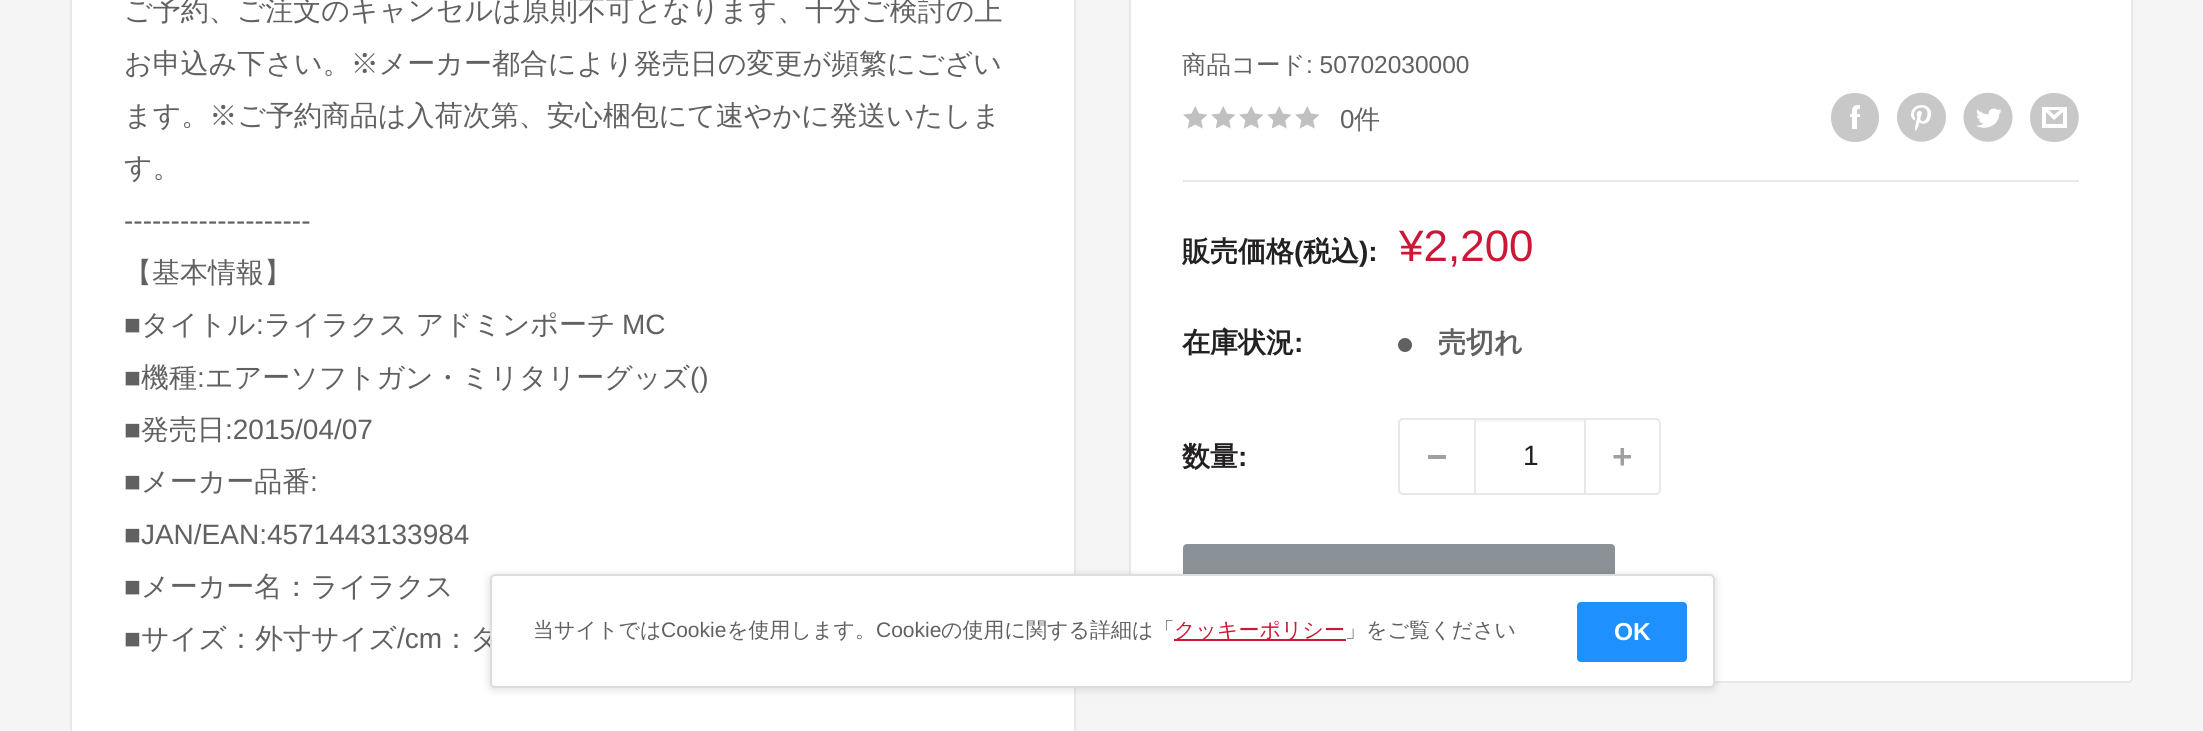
#include <cairo/cairo.h>
#include <math.h>
#include <stddef.h>

typedef struct { double x, y; const char *s; } line_t;
typedef struct { double x, y, w, h; unsigned color; } box_t;
static cairo_t *cr;

static void rgb(unsigned color)
{
	cairo_set_source_rgb(cr, (color >> 16) / 255.0, (color >> 8 & 255) / 255.0, (color & 255) / 255.0);
}

static void rrect(double x, double y, double w, double h, double r)
{
	cairo_new_sub_path(cr);
	cairo_arc(cr, x + w - r, y + h - r, r, 0, M_PI / 2);
	cairo_arc(cr, x + r, y + h - r, r, M_PI / 2, M_PI);
	cairo_arc(cr, x + r, y + r, r, M_PI, 1.5 * M_PI);
	cairo_arc(cr, x + w - r, y + r, r, 1.5 * M_PI, 2 * M_PI);
	cairo_close_path(cr);
}

static void soft_shadow(double x, double y, double w, double h, double r, double blur, double alpha)
{
	cairo_push_group_with_content(cr, CAIRO_CONTENT_ALPHA);
	cairo_set_operator(cr, CAIRO_OPERATOR_SOURCE);
	for (int i = 15; i >= -15 && fmin(w, h) + blur * i / 3 > 0; i -= 2) {
		double e = blur * i / 6;
		cairo_set_source_rgba(cr, 0, 0, 0, alpha * erfc((i - 1) / 8.5) / 2);
		rrect(x - e, y - e, w + 2 * e, h + 2 * e, fmax(0, fmin(r + e + blur * .6, fmin(w, h) / 2 + e)));
		cairo_fill(cr);
	}
	cairo_pattern_t *soft = cairo_pop_group(cr);
	cairo_mask(cr, soft);
	cairo_pattern_destroy(soft);
}

static void image(const char *path, double x, double y, double w, double h)
{
	cairo_surface_t *image = cairo_image_surface_create_from_png(path);
	cairo_save(cr);
	cairo_set_source_surface(cr, image, x, y);
	cairo_rectangle(cr, x, y, w, h);
	cairo_fill(cr);
	cairo_restore(cr);
	cairo_surface_destroy(image);
}

int main(void) {
	cairo_surface_t *surface = cairo_image_surface_create(CAIRO_FORMAT_RGB24, 2203, 731);
	cr = cairo_create(surface);
	cairo_font_options_t *options = cairo_font_options_create();
	cairo_font_options_set_hint_metrics(options, CAIRO_HINT_METRICS_OFF);
	cairo_font_options_set_hint_style(options, CAIRO_HINT_STYLE_NONE);
	cairo_set_font_options(cr, options);
	cairo_set_miter_limit(cr, 4);
	rgb(0xf5f5f5);
	cairo_paint(cr);
	rgb(0xffffff);
	cairo_rectangle(cr, 71, -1, 1004, 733);
	cairo_fill_preserve(cr);
	rgb(0xe8e8e8);
	cairo_stroke(cr);
	rgb(0xffffff);
	rrect(1130, -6, 1002, 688, 4);
	cairo_fill_preserve(cr);
	rgb(0xe8e8e8);
	cairo_stroke(cr);
	image("img/1.png", 1183, 106, 25, 23);
	image("img/1.png", 1211, 106, 25, 23);
	image("img/1.png", 1239, 106, 25, 23);
	image("img/1.png", 1267, 106, 25, 23);
	image("img/1.png", 1295, 106, 25, 23);
	rgb(0xc8c8c8);
	cairo_set_fill_rule(cr, CAIRO_FILL_RULE_EVEN_ODD);
	cairo_new_path(cr);
	cairo_move_to(cr, 1855, 142);
	cairo_curve_to(cr, 1823, 142, 1823, 93, 1855, 93);
	cairo_curve_to(cr, 1887, 93, 1887, 142, 1855, 142);
	cairo_close_path(cr);
	cairo_move_to(cr, 1860, 114);
	cairo_line_to(cr, 1857, 114);
	cairo_curve_to(cr, 1857, 110, 1856, 109, 1860, 109);
	cairo_line_to(cr, 1860, 105);
	cairo_curve_to(cr, 1853, 105, 1852, 106, 1852, 114);
	cairo_line_to(cr, 1850, 114);
	cairo_line_to(cr, 1850, 117);
	cairo_line_to(cr, 1852, 117);
	cairo_line_to(cr, 1852, 129);
	cairo_line_to(cr, 1857, 129);
	cairo_line_to(cr, 1857, 117);
	cairo_line_to(cr, 1860, 117);
	cairo_close_path(cr);
	cairo_fill(cr);
	image("img/2.png", 1897, 92, 49, 50);
	image("img/3.png", 1963, 92, 50, 50);
	cairo_set_fill_rule(cr, CAIRO_FILL_RULE_WINDING);
	cairo_new_path(cr);
	cairo_move_to(cr, 2054, 142);
	cairo_curve_to(cr, 2022, 142, 2022, 93, 2054, 93);
	cairo_curve_to(cr, 2087, 93, 2087, 142, 2054, 142);
	cairo_close_path(cr);
	cairo_move_to(cr, 2049, 110);
	cairo_line_to(cr, 2060, 110);
	cairo_line_to(cr, 2054, 115);
	cairo_close_path(cr);
	cairo_move_to(cr, 2063, 112);
	cairo_line_to(cr, 2063, 124);
	cairo_line_to(cr, 2046, 124);
	cairo_line_to(cr, 2046, 112);
	cairo_line_to(cr, 2054, 120);
	cairo_close_path(cr);
	cairo_move_to(cr, 2067, 107);
	cairo_line_to(cr, 2042, 107);
	cairo_line_to(cr, 2042, 128);
	cairo_line_to(cr, 2067, 128);
	cairo_close_path(cr);
	cairo_fill(cr);
	rgb(0xe8e8e8);
	cairo_rectangle(cr, 1183, 180, 896, 2);
	cairo_fill(cr);
	rgb(0x616161);
	cairo_arc(cr, 1405, 345, 7, 0, 2 * M_PI);
	cairo_fill(cr);
	rrect(1399, 419, 261, 75, 4);
	rgb(0xe8e8e8);
	cairo_stroke(cr);
	{
		static const box_t items[] = {
			{1428, 455, 18, 4, 0xa0a0a0},
			{1475, 420, 109, 2, 0xf6f6f6},
			{1584, 420, 2, 74, 0xe8e8e8},
			{1474, 420, 2, 74, 0xe8e8e8},
		};
		for (size_t i = 0; i < sizeof items / sizeof *items; i++) {
			rgb(items[i].color);
			cairo_rectangle(cr, items[i].x, items[i].y, items[i].w, items[i].h);
			cairo_fill(cr);
		}
	}
	image("img/4.png", 1613, 448, 18, 18);
	rgb(0x8a9297);
	rrect(1184, 545, 430, 82, 3);
	cairo_fill_preserve(cr);
	cairo_stroke(cr);
	rgb(0x000000);
	soft_shadow(488, 574, 1229, 117, 7, 3.5, 0.1);
	cairo_select_font_face(cr, "WenQuanYi Zen Hei Medium", CAIRO_FONT_SLANT_NORMAL, CAIRO_FONT_WEIGHT_NORMAL);
	cairo_set_font_size(cr, 28);
	rgb(0x616161);
	{
		static const line_t items[] = {
			{124, 20, "ご予約、ご注文のキャンセルは原則不可となります、十分ご検討の上"},
			{124, 73, "お申込み下さい。※メーカー都合により発売日の変更が頻繁にござい"},
			{124, 125, "ます。※ご予約商品は入荷次第、安心梱包にて速やかに発送いたしま"},
			{124, 177, "す。"},
		};
		for (size_t i = 0; i < sizeof items / sizeof *items; i++) {
			cairo_move_to(cr, items[i].x, items[i].y);
			cairo_show_text(cr, items[i].s);
		}
	}
	cairo_select_font_face(cr, "Liberation Sans", CAIRO_FONT_SLANT_NORMAL, CAIRO_FONT_WEIGHT_NORMAL);
	cairo_move_to(cr, 124, 230);
	cairo_show_text(cr, "--------------------");
	cairo_select_font_face(cr, "WenQuanYi Zen Hei Medium", CAIRO_FONT_SLANT_NORMAL, CAIRO_FONT_WEIGHT_NORMAL);
	cairo_move_to(cr, 124, 282);
	cairo_show_text(cr, "【基本情報】");
	cairo_select_font_face(cr, "Liberation Sans", CAIRO_FONT_SLANT_NORMAL, CAIRO_FONT_WEIGHT_NORMAL);
	cairo_move_to(cr, 124, 334);
	cairo_show_text(cr, "■");
	cairo_select_font_face(cr, "WenQuanYi Zen Hei Medium", CAIRO_FONT_SLANT_NORMAL, CAIRO_FONT_WEIGHT_NORMAL);
	cairo_move_to(cr, 141, 334);
	cairo_show_text(cr, "タイトル");
	cairo_select_font_face(cr, "Liberation Sans", CAIRO_FONT_SLANT_NORMAL, CAIRO_FONT_WEIGHT_NORMAL);
	cairo_move_to(cr, 256, 334);
	cairo_show_text(cr, ":");
	cairo_select_font_face(cr, "WenQuanYi Zen Hei Medium", CAIRO_FONT_SLANT_NORMAL, CAIRO_FONT_WEIGHT_NORMAL);
	cairo_move_to(cr, 264, 334);
	cairo_show_text(cr, "ライラクス アドミンポーチ");
	cairo_select_font_face(cr, "Liberation Sans", CAIRO_FONT_SLANT_NORMAL, CAIRO_FONT_WEIGHT_NORMAL);
	cairo_move_to(cr, 622, 334);
	cairo_show_text(cr, "MC");
	cairo_move_to(cr, 124, 387);
	cairo_show_text(cr, "■");
	cairo_select_font_face(cr, "WenQuanYi Zen Hei Medium", CAIRO_FONT_SLANT_NORMAL, CAIRO_FONT_WEIGHT_NORMAL);
	cairo_move_to(cr, 141, 387);
	cairo_show_text(cr, "機種");
	cairo_select_font_face(cr, "Liberation Sans", CAIRO_FONT_SLANT_NORMAL, CAIRO_FONT_WEIGHT_NORMAL);
	cairo_move_to(cr, 197, 387);
	cairo_show_text(cr, ":");
	cairo_select_font_face(cr, "WenQuanYi Zen Hei Medium", CAIRO_FONT_SLANT_NORMAL, CAIRO_FONT_WEIGHT_NORMAL);
	cairo_move_to(cr, 205, 387);
	cairo_show_text(cr, "エアーソフトガン・ミリタリーグッズ");
	cairo_select_font_face(cr, "Liberation Sans", CAIRO_FONT_SLANT_NORMAL, CAIRO_FONT_WEIGHT_NORMAL);
	cairo_move_to(cr, 690, 387);
	cairo_show_text(cr, "()");
	cairo_move_to(cr, 124, 439);
	cairo_show_text(cr, "■");
	cairo_select_font_face(cr, "WenQuanYi Zen Hei Medium", CAIRO_FONT_SLANT_NORMAL, CAIRO_FONT_WEIGHT_NORMAL);
	cairo_move_to(cr, 141, 439);
	cairo_show_text(cr, "発売日");
	cairo_select_font_face(cr, "Liberation Sans", CAIRO_FONT_SLANT_NORMAL, CAIRO_FONT_WEIGHT_NORMAL);
	cairo_move_to(cr, 225, 439);
	cairo_show_text(cr, ":2015/04/07");
	cairo_move_to(cr, 124, 491);
	cairo_show_text(cr, "■");
	cairo_select_font_face(cr, "WenQuanYi Zen Hei Medium", CAIRO_FONT_SLANT_NORMAL, CAIRO_FONT_WEIGHT_NORMAL);
	cairo_move_to(cr, 141, 491);
	cairo_show_text(cr, "メーカー品番");
	cairo_select_font_face(cr, "Liberation Sans", CAIRO_FONT_SLANT_NORMAL, CAIRO_FONT_WEIGHT_NORMAL);
	{
		static const line_t items[] = {
			{310, 491, ":"},
			{124, 544, "■JAN/EAN:4571443133984"},
			{124, 596, "■"},
		};
		for (size_t i = 0; i < sizeof items / sizeof *items; i++) {
			cairo_move_to(cr, items[i].x, items[i].y);
			cairo_show_text(cr, items[i].s);
		}
	}
	cairo_select_font_face(cr, "WenQuanYi Zen Hei Medium", CAIRO_FONT_SLANT_NORMAL, CAIRO_FONT_WEIGHT_NORMAL);
	cairo_move_to(cr, 141, 596);
	cairo_show_text(cr, "メーカー名：ライラクス");
	cairo_select_font_face(cr, "Liberation Sans", CAIRO_FONT_SLANT_NORMAL, CAIRO_FONT_WEIGHT_NORMAL);
	cairo_move_to(cr, 124, 648);
	cairo_show_text(cr, "■");
	cairo_select_font_face(cr, "WenQuanYi Zen Hei Medium", CAIRO_FONT_SLANT_NORMAL, CAIRO_FONT_WEIGHT_NORMAL);
	cairo_move_to(cr, 141, 648);
	cairo_show_text(cr, "サイズ：外寸サイズ");
	cairo_select_font_face(cr, "Liberation Sans", CAIRO_FONT_SLANT_NORMAL, CAIRO_FONT_WEIGHT_NORMAL);
	cairo_move_to(cr, 397, 648);
	cairo_show_text(cr, "/cm");
	cairo_select_font_face(cr, "WenQuanYi Zen Hei Medium", CAIRO_FONT_SLANT_NORMAL, CAIRO_FONT_WEIGHT_NORMAL);
	cairo_move_to(cr, 442, 648);
	cairo_show_text(cr, "：タ");
	cairo_set_font_size(cr, 24.5);
	cairo_move_to(cr, 1182, 73);
	cairo_show_text(cr, "商品コード");
	cairo_select_font_face(cr, "Liberation Sans", CAIRO_FONT_SLANT_NORMAL, CAIRO_FONT_WEIGHT_NORMAL);
	cairo_move_to(cr, 1306, 73);
	cairo_show_text(cr, ": 50702030000");
	cairo_set_font_size(cr, 26);
	cairo_move_to(cr, 1340, 128);
	cairo_show_text(cr, "0");
	cairo_select_font_face(cr, "WenQuanYi Zen Hei Medium", CAIRO_FONT_SLANT_NORMAL, CAIRO_FONT_WEIGHT_NORMAL);
	cairo_move_to(cr, 1354, 128);
	cairo_show_text(cr, "件");
	cairo_select_font_face(cr, "WenQuanYi Zen Hei", CAIRO_FONT_SLANT_NORMAL, CAIRO_FONT_WEIGHT_BOLD);
	cairo_set_font_size(cr, 28);
	rgb(0x222021);
	cairo_move_to(cr, 1182, 261);
	cairo_show_text(cr, "販売価格");
	cairo_select_font_face(cr, "Liberation Sans", CAIRO_FONT_SLANT_NORMAL, CAIRO_FONT_WEIGHT_BOLD);
	cairo_move_to(cr, 1294, 261);
	cairo_show_text(cr, "(");
	cairo_select_font_face(cr, "WenQuanYi Zen Hei", CAIRO_FONT_SLANT_NORMAL, CAIRO_FONT_WEIGHT_BOLD);
	cairo_move_to(cr, 1303, 261);
	cairo_show_text(cr, "税込");
	cairo_select_font_face(cr, "Liberation Sans", CAIRO_FONT_SLANT_NORMAL, CAIRO_FONT_WEIGHT_BOLD);
	cairo_move_to(cr, 1359, 261);
	cairo_show_text(cr, "):");
	cairo_select_font_face(cr, "Liberation Sans", CAIRO_FONT_SLANT_NORMAL, CAIRO_FONT_WEIGHT_NORMAL);
	cairo_set_font_size(cr, 44);
	rgb(0xcb1836);
	cairo_move_to(cr, 1399, 261);
	cairo_show_text(cr, "¥2,200");
	cairo_select_font_face(cr, "WenQuanYi Zen Hei", CAIRO_FONT_SLANT_NORMAL, CAIRO_FONT_WEIGHT_BOLD);
	cairo_set_font_size(cr, 28);
	rgb(0x222021);
	cairo_move_to(cr, 1182, 352);
	cairo_show_text(cr, "在庫状況");
	cairo_select_font_face(cr, "Liberation Sans", CAIRO_FONT_SLANT_NORMAL, CAIRO_FONT_WEIGHT_BOLD);
	cairo_move_to(cr, 1294, 352);
	cairo_show_text(cr, ":");
	cairo_select_font_face(cr, "WenQuanYi Zen Hei", CAIRO_FONT_SLANT_NORMAL, CAIRO_FONT_WEIGHT_BOLD);
	rgb(0x616161);
	cairo_move_to(cr, 1438, 352);
	cairo_show_text(cr, "売切れ");
	rgb(0x222021);
	cairo_move_to(cr, 1182, 466);
	cairo_show_text(cr, "数量");
	cairo_select_font_face(cr, "Liberation Sans", CAIRO_FONT_SLANT_NORMAL, CAIRO_FONT_WEIGHT_BOLD);
	cairo_move_to(cr, 1238, 466);
	cairo_show_text(cr, ":");
	cairo_select_font_face(cr, "Liberation Sans", CAIRO_FONT_SLANT_NORMAL, CAIRO_FONT_WEIGHT_NORMAL);
	cairo_move_to(cr, 1523, 465);
	cairo_show_text(cr, "1");
	rgb(0xffffff);
	rrect(491, 575, 1223, 112, 4);
	cairo_fill_preserve(cr);
	rgb(0xdddddd);
	cairo_stroke(cr);
	cairo_select_font_face(cr, "WenQuanYi Zen Hei Medium", CAIRO_FONT_SLANT_NORMAL, CAIRO_FONT_WEIGHT_NORMAL);
	cairo_set_font_size(cr, 21);
	rgb(0x616161);
	cairo_move_to(cr, 533, 637);
	cairo_show_text(cr, "当サイトでは");
	cairo_select_font_face(cr, "Liberation Sans", CAIRO_FONT_SLANT_NORMAL, CAIRO_FONT_WEIGHT_NORMAL);
	cairo_move_to(cr, 661, 637);
	cairo_show_text(cr, "Cookie");
	cairo_select_font_face(cr, "WenQuanYi Zen Hei Medium", CAIRO_FONT_SLANT_NORMAL, CAIRO_FONT_WEIGHT_NORMAL);
	cairo_move_to(cr, 727, 637);
	cairo_show_text(cr, "を使用します。");
	cairo_select_font_face(cr, "Liberation Sans", CAIRO_FONT_SLANT_NORMAL, CAIRO_FONT_WEIGHT_NORMAL);
	cairo_move_to(cr, 876, 637);
	cairo_show_text(cr, "Cookie");
	cairo_select_font_face(cr, "WenQuanYi Zen Hei Medium", CAIRO_FONT_SLANT_NORMAL, CAIRO_FONT_WEIGHT_NORMAL);
	cairo_move_to(cr, 941, 637);
	cairo_show_text(cr, "の使用に関する詳細は「");
	rgb(0xcb1836);
	cairo_rectangle(cr, 1174, 639, 172, 2);
	cairo_fill(cr);
	cairo_move_to(cr, 1174, 637);
	cairo_show_text(cr, "クッキーポリシー");
	rgb(0x616161);
	cairo_move_to(cr, 1345, 637);
	cairo_show_text(cr, "」をご覧ください");
	rgb(0x1e90ff);
	rrect(1577, 602, 110, 60, 4);
	cairo_fill(cr);
	cairo_select_font_face(cr, "Liberation Sans", CAIRO_FONT_SLANT_NORMAL, CAIRO_FONT_WEIGHT_BOLD);
	cairo_set_font_size(cr, 24.5);
	rgb(0xffffff);
	cairo_move_to(cr, 1614, 640);
	cairo_show_text(cr, "OK");
	cairo_surface_write_to_png(surface, "page.png");
	cairo_font_options_destroy(options);
	cairo_destroy(cr);
	cairo_surface_destroy(surface);
	return 0;
}
